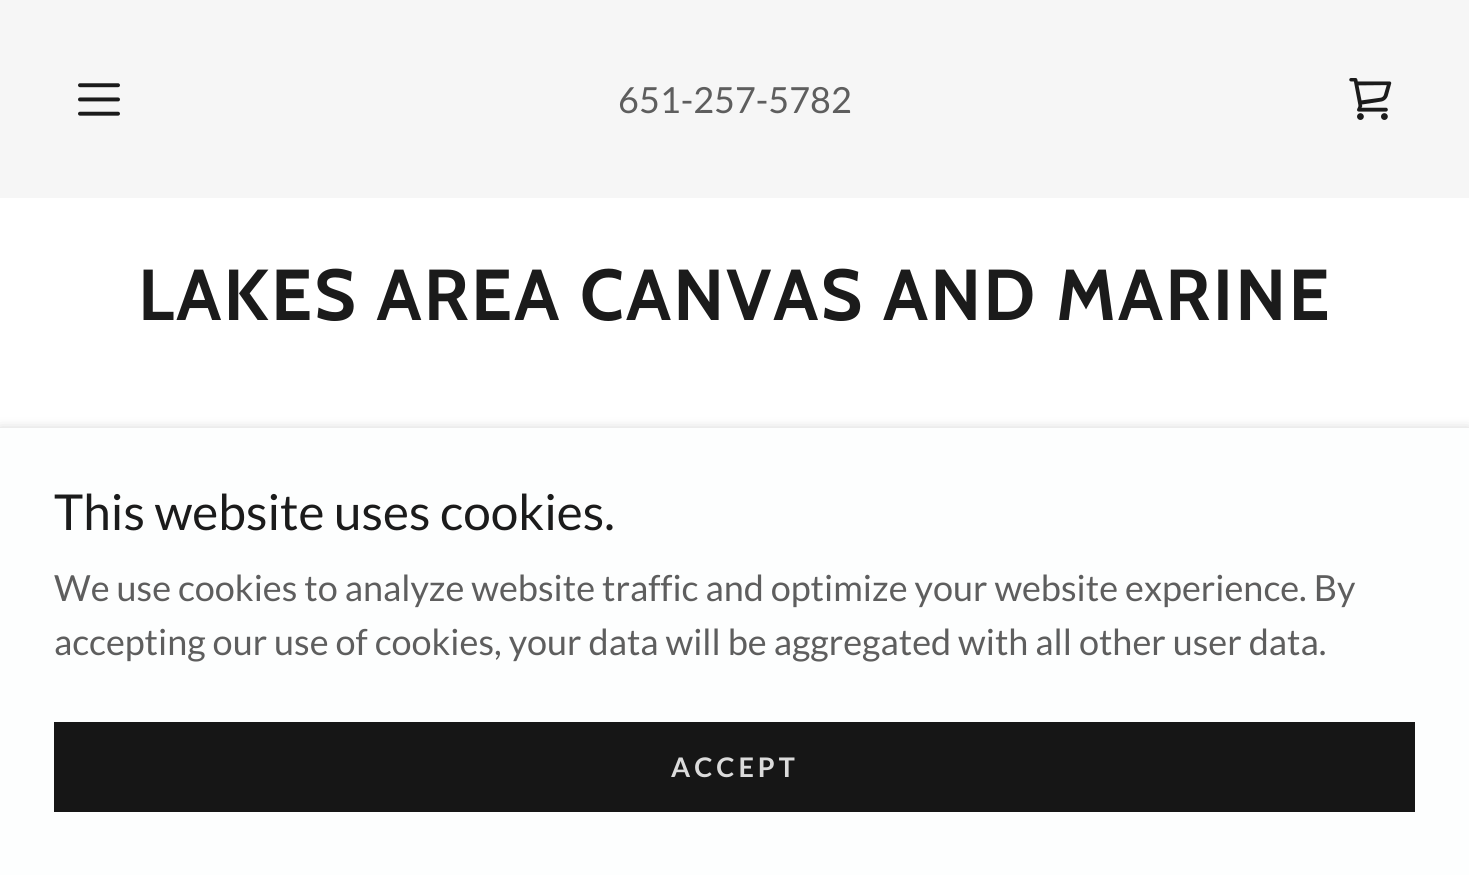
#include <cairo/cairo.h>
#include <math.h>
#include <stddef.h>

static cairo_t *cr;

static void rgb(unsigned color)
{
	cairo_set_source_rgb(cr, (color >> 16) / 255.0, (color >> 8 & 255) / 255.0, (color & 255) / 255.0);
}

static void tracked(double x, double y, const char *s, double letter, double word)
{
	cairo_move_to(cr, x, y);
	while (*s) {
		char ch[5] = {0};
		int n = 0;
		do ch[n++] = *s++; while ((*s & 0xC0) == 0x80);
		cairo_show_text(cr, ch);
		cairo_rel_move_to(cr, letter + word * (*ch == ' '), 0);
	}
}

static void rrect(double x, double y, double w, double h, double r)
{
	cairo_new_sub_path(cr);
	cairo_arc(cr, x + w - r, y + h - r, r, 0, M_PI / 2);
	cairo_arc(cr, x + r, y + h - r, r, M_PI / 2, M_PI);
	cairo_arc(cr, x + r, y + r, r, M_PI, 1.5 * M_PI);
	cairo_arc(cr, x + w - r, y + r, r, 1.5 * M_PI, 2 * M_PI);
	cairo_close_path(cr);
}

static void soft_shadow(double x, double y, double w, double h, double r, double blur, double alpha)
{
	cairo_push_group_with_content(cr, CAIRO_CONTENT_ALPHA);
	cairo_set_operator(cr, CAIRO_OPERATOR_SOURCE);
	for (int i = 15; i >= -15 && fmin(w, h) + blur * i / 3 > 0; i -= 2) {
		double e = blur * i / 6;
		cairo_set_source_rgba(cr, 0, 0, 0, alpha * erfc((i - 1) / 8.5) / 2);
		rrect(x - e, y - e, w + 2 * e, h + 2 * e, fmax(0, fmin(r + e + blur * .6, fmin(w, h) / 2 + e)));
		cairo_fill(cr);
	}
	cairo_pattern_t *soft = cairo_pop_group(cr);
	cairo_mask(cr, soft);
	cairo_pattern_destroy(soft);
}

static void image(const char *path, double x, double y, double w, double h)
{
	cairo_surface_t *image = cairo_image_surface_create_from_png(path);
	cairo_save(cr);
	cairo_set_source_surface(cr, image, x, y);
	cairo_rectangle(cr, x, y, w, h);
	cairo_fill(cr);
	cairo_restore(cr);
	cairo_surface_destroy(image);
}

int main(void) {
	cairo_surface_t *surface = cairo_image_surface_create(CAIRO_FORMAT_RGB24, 1469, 875);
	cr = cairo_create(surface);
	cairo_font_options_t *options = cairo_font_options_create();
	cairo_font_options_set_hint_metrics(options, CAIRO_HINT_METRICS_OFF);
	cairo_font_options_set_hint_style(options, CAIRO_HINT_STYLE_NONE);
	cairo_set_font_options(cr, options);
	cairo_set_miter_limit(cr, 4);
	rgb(0xffffff);
	cairo_paint(cr);
	rgb(0xf6f6f6);
	cairo_rectangle(cr, 0, 0, 1469, 198);
	cairo_fill(cr);
	image("img/1.png", 78, 83, 42, 33);
	image("img/2.png", 1349, 78, 43, 42);
	rgb(0x000000);
	soft_shadow(0, 432, 1469, 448, 0, 7, 0.3);
	rgb(0xfdfefe);
	cairo_rectangle(cr, 0, 428, 1469, 447);
	cairo_fill(cr);
	rgb(0x161616);
	cairo_rectangle(cr, 54, 722, 1361, 90);
	cairo_fill(cr);
	cairo_select_font_face(cr, "Lato", CAIRO_FONT_SLANT_NORMAL, CAIRO_FONT_WEIGHT_NORMAL);
	cairo_set_font_size(cr, 36);
	rgb(0x5e5e5e);
	cairo_move_to(cr, 618, 113);
	cairo_show_text(cr, "651-257-5782");
	cairo_select_font_face(cr, "Cabin", CAIRO_FONT_SLANT_NORMAL, CAIRO_FONT_WEIGHT_BOLD);
	cairo_set_font_size(cr, 72);
	rgb(0x1b1b1b);
	tracked(138, 320, "LAKES AREA CANVAS AND MARINE", 2.25, 0);
	cairo_select_font_face(cr, "Lato", CAIRO_FONT_SLANT_NORMAL, CAIRO_FONT_WEIGHT_NORMAL);
	cairo_set_font_size(cr, 49.5);
	cairo_move_to(cr, 54, 530);
	cairo_show_text(cr, "This website uses cookies.");
	cairo_set_font_size(cr, 36);
	rgb(0x5e5e5e);
	cairo_move_to(cr, 54, 601);
	cairo_show_text(cr, "We use cookies to analyze website traffic and optimize your website experience. By");
	cairo_move_to(cr, 54, 655);
	cairo_show_text(cr, "accepting our use of cookies, your data will be aggregated with all other user data.");
	cairo_select_font_face(cr, "Lato", CAIRO_FONT_SLANT_NORMAL, CAIRO_FONT_WEIGHT_BOLD);
	cairo_set_font_size(cr, 27);
	rgb(0xdbdbdb);
	tracked(671, 777, "ACCEPT", 4, 0);
	cairo_surface_write_to_png(surface, "page.png");
	cairo_font_options_destroy(options);
	cairo_destroy(cr);
	cairo_surface_destroy(surface);
	return 0;
}
